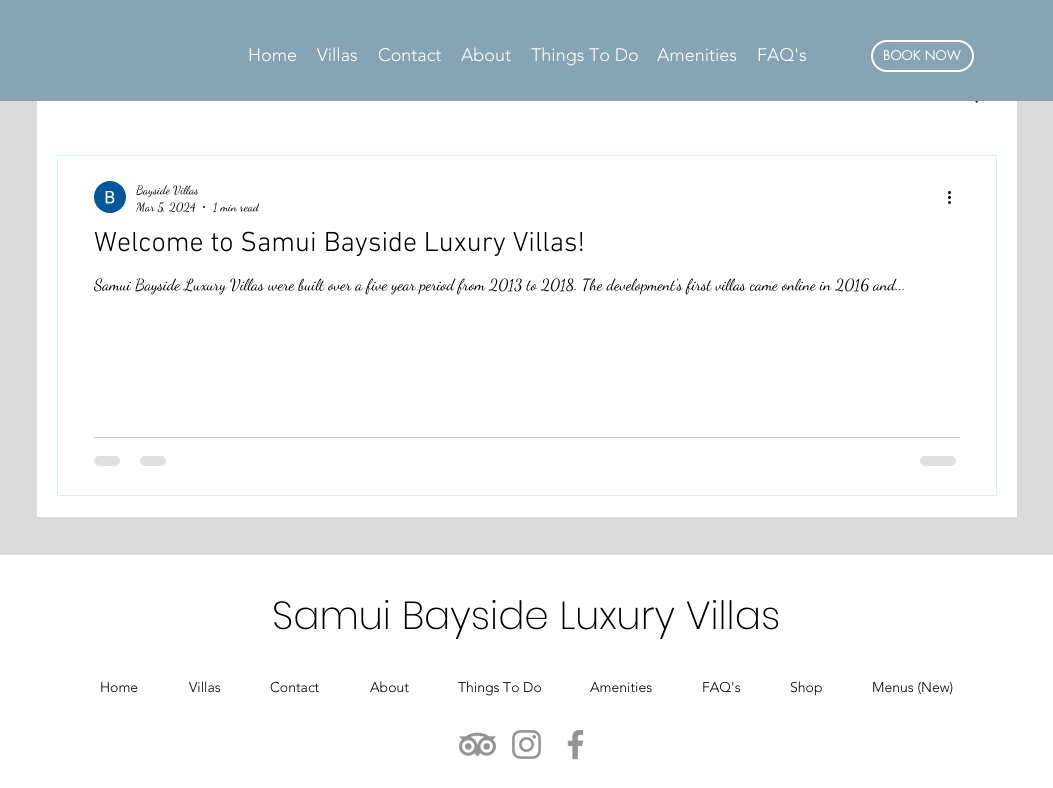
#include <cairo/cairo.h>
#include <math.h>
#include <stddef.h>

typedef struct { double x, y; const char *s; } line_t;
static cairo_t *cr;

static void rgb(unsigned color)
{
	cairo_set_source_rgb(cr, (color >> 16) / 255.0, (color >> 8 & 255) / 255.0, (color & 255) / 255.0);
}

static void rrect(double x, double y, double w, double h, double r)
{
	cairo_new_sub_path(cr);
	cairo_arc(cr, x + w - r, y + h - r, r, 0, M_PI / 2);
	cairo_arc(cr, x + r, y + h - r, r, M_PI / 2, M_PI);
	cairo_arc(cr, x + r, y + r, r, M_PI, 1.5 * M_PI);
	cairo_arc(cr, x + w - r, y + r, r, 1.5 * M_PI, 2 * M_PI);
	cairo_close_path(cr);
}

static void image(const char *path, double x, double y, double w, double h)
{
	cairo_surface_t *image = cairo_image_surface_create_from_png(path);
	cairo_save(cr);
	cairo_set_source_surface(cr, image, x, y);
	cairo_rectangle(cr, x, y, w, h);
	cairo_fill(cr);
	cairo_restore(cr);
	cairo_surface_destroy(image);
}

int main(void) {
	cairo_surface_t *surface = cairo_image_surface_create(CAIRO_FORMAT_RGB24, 1053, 788);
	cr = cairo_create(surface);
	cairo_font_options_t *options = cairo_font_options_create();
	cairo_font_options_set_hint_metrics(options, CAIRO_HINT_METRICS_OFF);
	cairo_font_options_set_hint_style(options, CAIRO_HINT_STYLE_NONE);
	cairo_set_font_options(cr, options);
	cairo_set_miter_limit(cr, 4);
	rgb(0xdadada);
	cairo_paint(cr);
	rgb(0x86a4b6);
	cairo_rectangle(cr, 0, 0, 1053, 101);
	cairo_fill(cr);
	rrect(872, 41, 101, 30, 15);
	rgb(0xffffff);
	cairo_stroke(cr);
	cairo_rectangle(cr, 37, 101, 980, 416);
	cairo_fill(cr);
	image("img/1.png", 975, 101, 3, 2);
	cairo_rectangle(cr, 57.5, 155.5, 939, 340);
	rgb(0xcff7f5);
	cairo_set_line_width(cr, 1);
	cairo_stroke(cr);
	image("img/2.png", 94, 181, 32, 32);
	rgb(0x000000);
	cairo_arc(cr, 204, 207, 1, 0, 2 * M_PI);
	cairo_fill(cr);
	image("img/3.png", 948, 191, 3, 13);
	rgb(0xcccccc);
	cairo_rectangle(cr, 94, 437, 866, 1);
	cairo_fill(cr);
	rgb(0xe0e0e0);
	rrect(94, 456, 26, 10, 5);
	cairo_fill(cr);
	rrect(140, 456, 26, 10, 5);
	cairo_fill(cr);
	rrect(920, 456, 36, 10, 5);
	cairo_fill(cr);
	rgb(0xffffff);
	cairo_rectangle(cr, 0, 555, 1053, 233);
	cairo_fill(cr);
	image("img/4.png", 458, 732, 39, 25);
	image("img/5.png", 512, 730, 29, 29);
	image("img/6.png", 567, 730, 17, 30);
	cairo_select_font_face(cr, "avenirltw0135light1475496 Light", CAIRO_FONT_SLANT_NORMAL, CAIRO_FONT_WEIGHT_NORMAL);
	cairo_set_font_size(cr, 18);
	{
		static const line_t items[] = {
			{248, 61, "Home"},
			{317, 61, "Villas"},
			{378, 61, "Contact"},
			{461, 61, "About"},
			{531, 61, "Things To Do"},
			{657, 61, "Amenities"},
			{757, 61, "FAQ's"},
		};
		for (size_t i = 0; i < sizeof items / sizeof *items; i++) {
			cairo_move_to(cr, items[i].x, items[i].y);
			cairo_show_text(cr, items[i].s);
		}
	}
	cairo_select_font_face(cr, "futura", CAIRO_FONT_SLANT_NORMAL, CAIRO_FONT_WEIGHT_NORMAL);
	cairo_set_font_size(cr, 13);
	cairo_move_to(cr, 883, 60);
	cairo_show_text(cr, "BOOK NOW");
	cairo_save(cr);
	cairo_rectangle(cr, 136, 183, 62, 14);
	cairo_clip(cr);
	cairo_select_font_face(cr, "Dancing Script", CAIRO_FONT_SLANT_NORMAL, CAIRO_FONT_WEIGHT_NORMAL);
	cairo_set_font_size(cr, 12);
	rgb(0x000000);
	cairo_move_to(cr, 136, 194);
	cairo_show_text(cr, "Bayside Villas");
	cairo_restore(cr);
	cairo_select_font_face(cr, "Dancing Script", CAIRO_FONT_SLANT_NORMAL, CAIRO_FONT_WEIGHT_NORMAL);
	cairo_set_font_size(cr, 12);
	rgb(0x000000);
	cairo_move_to(cr, 136, 211);
	cairo_show_text(cr, "Mar 5, 2024");
	cairo_save(cr);
	cairo_rectangle(cr, 213, 200, 46, 14);
	cairo_clip(cr);
	cairo_move_to(cr, 213, 211);
	cairo_show_text(cr, "1 min read");
	cairo_restore(cr);
	cairo_select_font_face(cr, "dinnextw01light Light", CAIRO_FONT_SLANT_NORMAL, CAIRO_FONT_WEIGHT_NORMAL);
	cairo_set_font_size(cr, 28);
	cairo_move_to(cr, 94, 251);
	cairo_show_text(cr, "Welcome to Samui Bayside Luxury Villas!");
	cairo_save(cr);
	cairo_rectangle(cr, 94, 273, 866, 24);
	cairo_clip(cr);
	cairo_select_font_face(cr, "Dancing Script", CAIRO_FONT_SLANT_NORMAL, CAIRO_FONT_WEIGHT_NORMAL);
	cairo_set_font_size(cr, 16);
	cairo_move_to(cr, 94, 290);
	cairo_show_text(cr, "Samui Bayside Luxury Villas were built over a five year period from 2013 to 2018. The development's first villas came online in 2016 and...");
	cairo_restore(cr);
	cairo_select_font_face(cr, "Poppins ExtraLight", CAIRO_FONT_SLANT_NORMAL, CAIRO_FONT_WEIGHT_NORMAL);
	cairo_set_font_size(cr, 39);
	cairo_move_to(cr, 272, 629);
	cairo_show_text(cr, "Samui Bayside Luxury Villas");
	cairo_select_font_face(cr, "avenirltw0135light1475496 Light", CAIRO_FONT_SLANT_NORMAL, CAIRO_FONT_WEIGHT_NORMAL);
	cairo_set_font_size(cr, 14);
	{
		static const line_t items[] = {
			{100, 692, "Home"},
			{189, 692, "Villas"},
			{270, 692, "Contact"},
			{370, 692, "About"},
			{458, 692, "Things To Do"},
			{590, 692, "Amenities"},
			{702, 692, "FAQ's"},
			{790, 692, "Shop"},
			{872, 692, "Menus (New)"},
		};
		for (size_t i = 0; i < sizeof items / sizeof *items; i++) {
			cairo_move_to(cr, items[i].x, items[i].y);
			cairo_show_text(cr, items[i].s);
		}
	}
	cairo_surface_write_to_png(surface, "page.png");
	cairo_font_options_destroy(options);
	cairo_destroy(cr);
	cairo_surface_destroy(surface);
	return 0;
}
